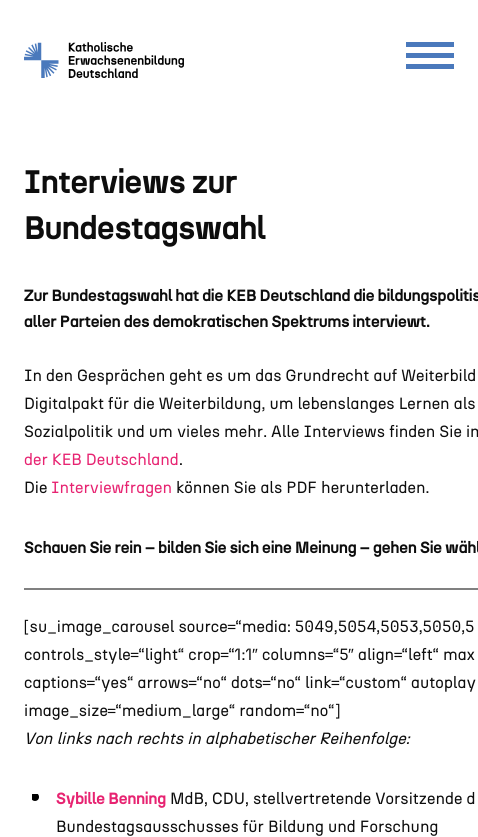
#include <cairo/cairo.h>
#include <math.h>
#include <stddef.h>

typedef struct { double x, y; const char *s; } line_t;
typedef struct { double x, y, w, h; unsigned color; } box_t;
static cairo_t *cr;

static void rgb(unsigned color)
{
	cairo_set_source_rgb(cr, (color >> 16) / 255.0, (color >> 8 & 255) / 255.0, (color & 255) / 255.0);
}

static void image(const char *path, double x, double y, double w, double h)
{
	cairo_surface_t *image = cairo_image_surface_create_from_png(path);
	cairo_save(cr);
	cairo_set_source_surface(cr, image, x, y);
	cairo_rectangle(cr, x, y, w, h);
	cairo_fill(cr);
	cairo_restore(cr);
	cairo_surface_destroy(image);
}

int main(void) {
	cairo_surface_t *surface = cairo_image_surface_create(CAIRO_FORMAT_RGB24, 478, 837);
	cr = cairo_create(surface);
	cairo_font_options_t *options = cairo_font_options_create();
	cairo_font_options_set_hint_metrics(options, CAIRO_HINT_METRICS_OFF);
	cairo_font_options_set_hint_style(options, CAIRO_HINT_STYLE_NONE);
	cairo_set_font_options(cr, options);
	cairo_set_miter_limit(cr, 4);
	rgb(0xffffff);
	cairo_paint(cr);
	image("img/1.png", 24, 42, 160, 36);
	{
		static const box_t items[] = {
			{406, 42, 48, 5, 0x4a79bc},
			{406, 53, 48, 5, 0x4a79bc},
			{406, 64, 48, 5, 0x4a79bc},
			{24, 588, 454, 2, 0x808080},
		};
		for (size_t i = 0; i < sizeof items / sizeof *items; i++) {
			rgb(items[i].color);
			cairo_rectangle(cr, items[i].x, items[i].y, items[i].w, items[i].h);
			cairo_fill(cr);
		}
	}
	cairo_save(cr);
	cairo_rectangle(cr, 32, 794, 8, 7);
	cairo_clip(cr);
	rgb(0x000000);
	cairo_arc(cr, 35, 797, 4, 0, 2 * M_PI);
	cairo_fill(cr);
	cairo_restore(cr);
	cairo_select_font_face(cr, "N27", CAIRO_FONT_SLANT_NORMAL, CAIRO_FONT_WEIGHT_BOLD);
	cairo_set_font_size(cr, 32.5);
	rgb(0x0d0d0d);
	cairo_move_to(cr, 24, 193);
	cairo_show_text(cr, "Interviews zur");
	cairo_move_to(cr, 24, 239);
	cairo_show_text(cr, "Bundestagswahl");
	cairo_set_font_size(cr, 16.25);
	cairo_move_to(cr, 24, 301);
	cairo_show_text(cr, "Zur Bundestagswahl hat die KEB Deutschland die bildungspolitis");
	cairo_move_to(cr, 24, 327);
	cairo_show_text(cr, "aller Parteien des demokratischen Spektrums interviewt.");
	cairo_select_font_face(cr, "N27", CAIRO_FONT_SLANT_NORMAL, CAIRO_FONT_WEIGHT_NORMAL);
	{
		static const line_t items[] = {
			{24, 381, "In den Gesprächen geht es um das Grundrecht auf Weiterbild"},
			{24, 409, "Digitalpakt für die Weiterbildung, um lebenslanges Lernen als"},
			{24, 437, "Sozialpolitik und um vieles mehr. Alle Interviews finden Sie im"},
		};
		for (size_t i = 0; i < sizeof items / sizeof *items; i++) {
			cairo_move_to(cr, items[i].x, items[i].y);
			cairo_show_text(cr, items[i].s);
		}
	}
	rgb(0xe72371);
	cairo_move_to(cr, 24, 465);
	cairo_show_text(cr, "der KEB Deutschland");
	rgb(0x0d0d0d);
	cairo_move_to(cr, 179, 465);
	cairo_show_text(cr, ".");
	cairo_move_to(cr, 24, 493);
	cairo_show_text(cr, "Die");
	rgb(0xe72371);
	cairo_move_to(cr, 51, 493);
	cairo_show_text(cr, "Interviewfragen");
	rgb(0x0d0d0d);
	cairo_move_to(cr, 176, 493);
	cairo_show_text(cr, "können Sie als PDF herunterladen.");
	cairo_select_font_face(cr, "N27", CAIRO_FONT_SLANT_NORMAL, CAIRO_FONT_WEIGHT_BOLD);
	cairo_move_to(cr, 24, 553);
	cairo_show_text(cr, "Schauen Sie rein – bilden Sie sich eine Meinung – gehen Sie wähl");
	cairo_select_font_face(cr, "N27", CAIRO_FONT_SLANT_NORMAL, CAIRO_FONT_WEIGHT_NORMAL);
	cairo_move_to(cr, 24, 632);
	cairo_show_text(cr, "[su_image_carousel source=“media: 5049,5054,5053,5050,5");
	cairo_move_to(cr, 24, 660);
	cairo_show_text(cr, "controls_style=“light“ crop=“1:1");
	cairo_select_font_face(cr, "Liberation Sans", CAIRO_FONT_SLANT_NORMAL, CAIRO_FONT_WEIGHT_NORMAL);
	cairo_move_to(cr, 252, 660);
	cairo_show_text(cr, "″");
	cairo_select_font_face(cr, "N27", CAIRO_FONT_SLANT_NORMAL, CAIRO_FONT_WEIGHT_NORMAL);
	cairo_move_to(cr, 262, 660);
	cairo_show_text(cr, "columns=“5");
	cairo_select_font_face(cr, "Liberation Sans", CAIRO_FONT_SLANT_NORMAL, CAIRO_FONT_WEIGHT_NORMAL);
	cairo_move_to(cr, 348, 660);
	cairo_show_text(cr, "″");
	cairo_select_font_face(cr, "N27", CAIRO_FONT_SLANT_NORMAL, CAIRO_FONT_WEIGHT_NORMAL);
	{
		static const line_t items[] = {
			{358, 660, "align=“left“ max"},
			{24, 688, "captions=“yes“ arrows=“no“ dots=“no“ link=“custom“ autoplay"},
			{24, 716, "image_size=“medium_large“ random=“no“]"},
		};
		for (size_t i = 0; i < sizeof items / sizeof *items; i++) {
			cairo_move_to(cr, items[i].x, items[i].y);
			cairo_show_text(cr, items[i].s);
		}
	}
	cairo_select_font_face(cr, "N27", CAIRO_FONT_SLANT_ITALIC, CAIRO_FONT_WEIGHT_NORMAL);
	cairo_move_to(cr, 24, 744);
	cairo_show_text(cr, "Von links nach rechts in alphabetischer Reihenfolge:");
	cairo_select_font_face(cr, "N27", CAIRO_FONT_SLANT_NORMAL, CAIRO_FONT_WEIGHT_BOLD);
	rgb(0xe72371);
	cairo_move_to(cr, 56, 804);
	cairo_show_text(cr, "Sybille Benning");
	cairo_select_font_face(cr, "N27", CAIRO_FONT_SLANT_NORMAL, CAIRO_FONT_WEIGHT_NORMAL);
	rgb(0x0d0d0d);
	cairo_move_to(cr, 170, 804);
	cairo_show_text(cr, "MdB, CDU, stellvertretende Vorsitzende d");
	cairo_move_to(cr, 56, 832);
	cairo_show_text(cr, "Bundestagsausschusses für Bildung und Forschung");
	cairo_surface_write_to_png(surface, "page.png");
	cairo_font_options_destroy(options);
	cairo_destroy(cr);
	cairo_surface_destroy(surface);
	return 0;
}
